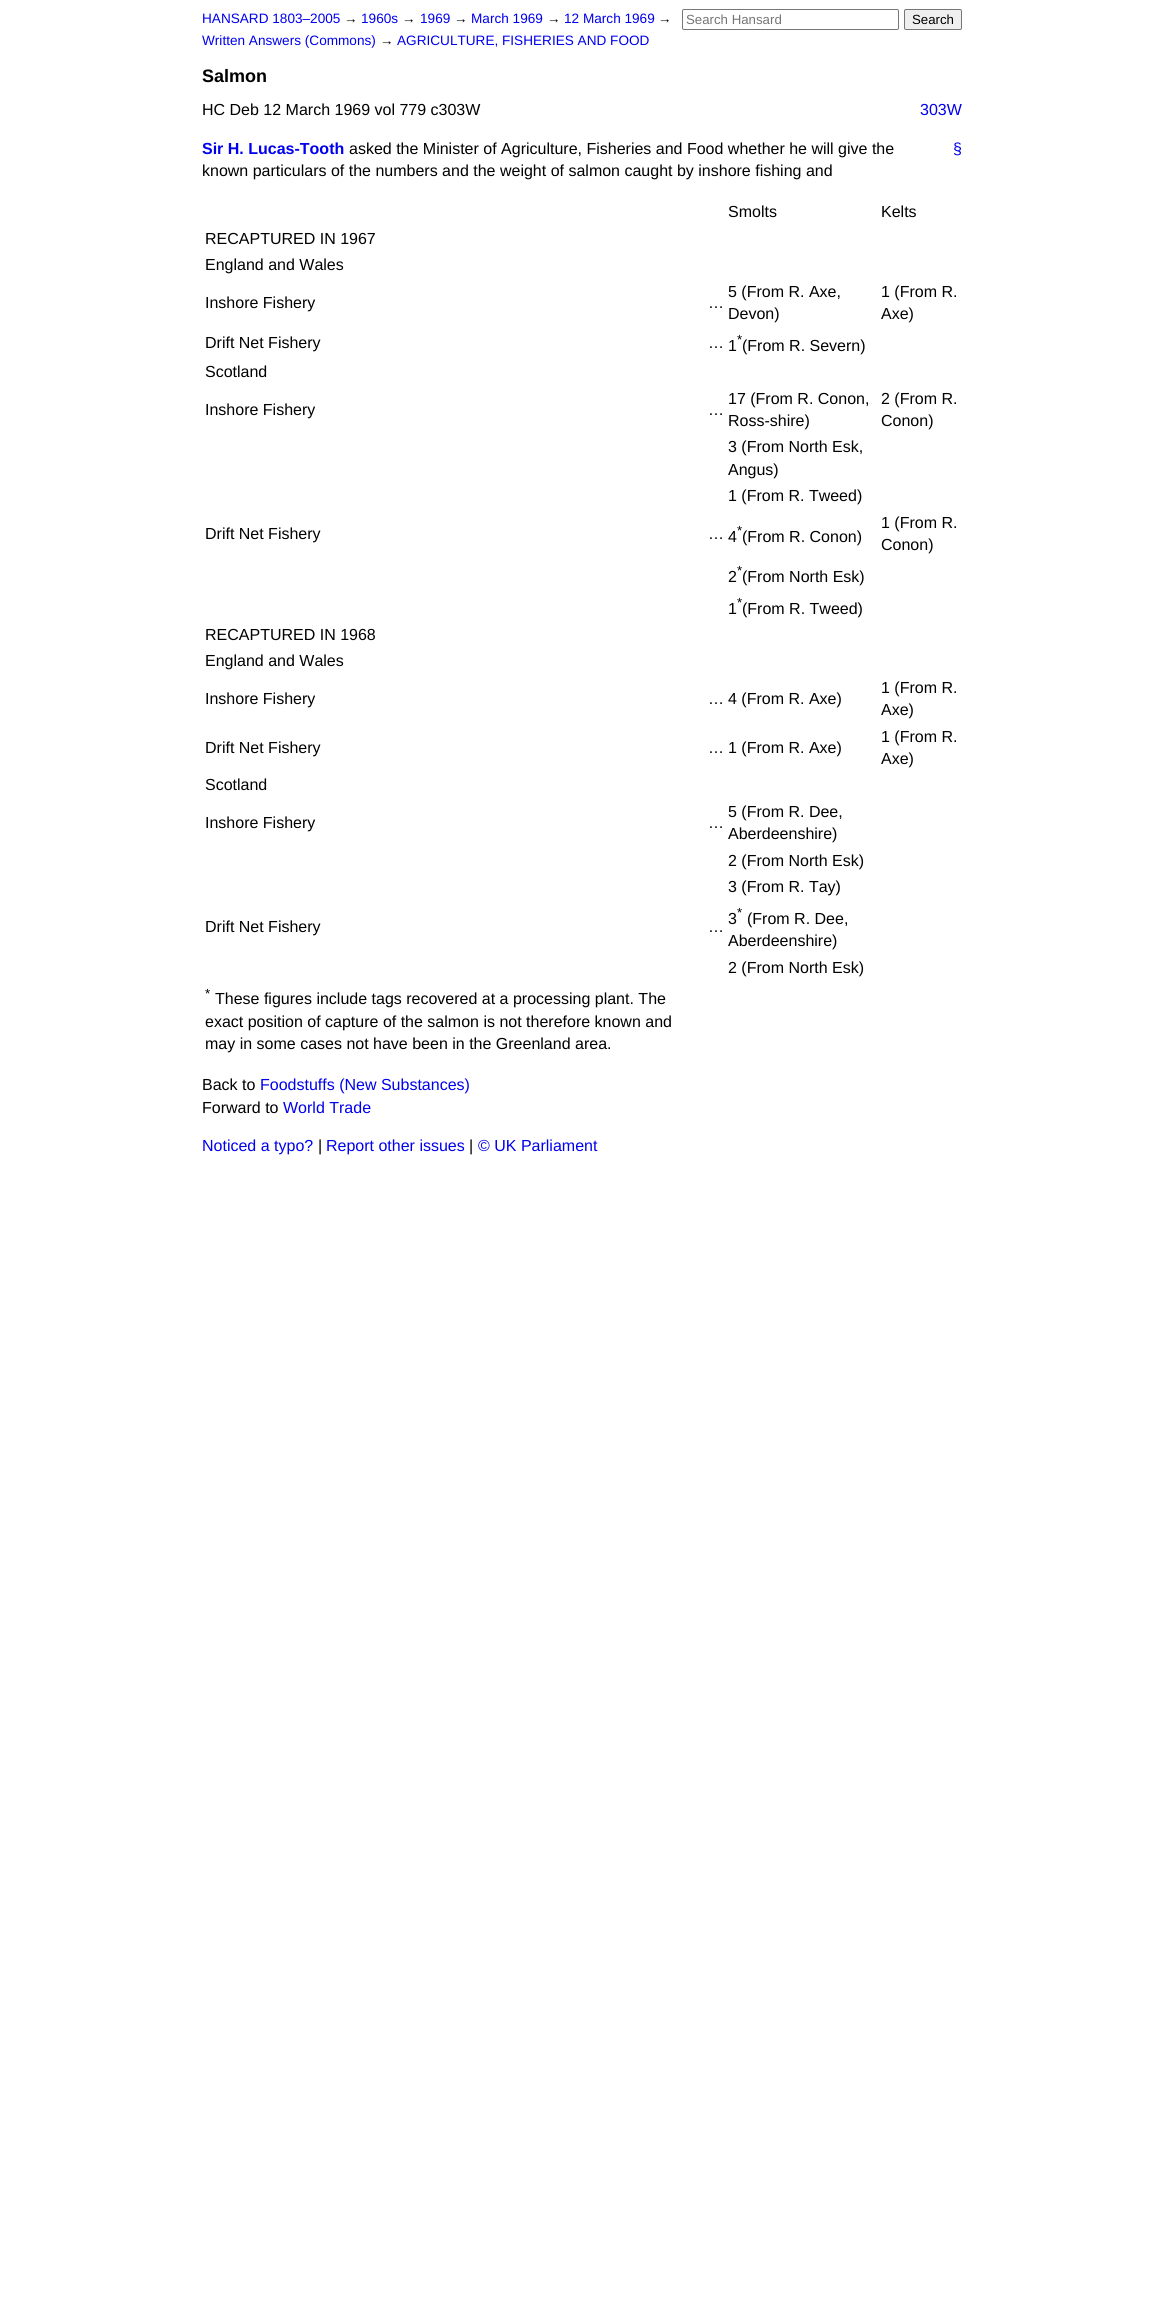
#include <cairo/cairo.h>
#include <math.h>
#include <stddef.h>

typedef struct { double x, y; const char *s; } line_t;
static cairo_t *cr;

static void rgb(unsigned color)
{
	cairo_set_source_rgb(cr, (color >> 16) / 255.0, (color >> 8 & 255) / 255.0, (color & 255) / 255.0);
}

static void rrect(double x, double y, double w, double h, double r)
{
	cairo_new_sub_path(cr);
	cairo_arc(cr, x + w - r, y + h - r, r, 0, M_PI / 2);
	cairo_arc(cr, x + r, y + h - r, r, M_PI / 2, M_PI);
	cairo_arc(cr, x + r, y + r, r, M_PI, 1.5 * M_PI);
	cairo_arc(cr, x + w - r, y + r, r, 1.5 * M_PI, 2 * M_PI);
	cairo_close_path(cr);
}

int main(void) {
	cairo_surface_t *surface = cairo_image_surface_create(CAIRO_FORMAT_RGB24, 1164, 2301);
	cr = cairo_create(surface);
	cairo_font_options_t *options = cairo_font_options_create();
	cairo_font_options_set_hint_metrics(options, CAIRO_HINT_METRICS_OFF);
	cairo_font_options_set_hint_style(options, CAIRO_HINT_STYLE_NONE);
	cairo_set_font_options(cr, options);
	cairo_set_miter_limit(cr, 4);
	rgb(0xffffff);
	cairo_paint(cr);
	rrect(682.5, 9.5, 216, 20, 1.5);
	rgb(0x767676);
	cairo_set_line_width(cr, 1);
	cairo_stroke(cr);
	rgb(0xefefef);
	rrect(904.5, 9.5, 57, 20, 1.5);
	cairo_fill_preserve(cr);
	rgb(0x767676);
	cairo_stroke(cr);
	cairo_select_font_face(cr, "Liberation Sans", CAIRO_FONT_SLANT_NORMAL, CAIRO_FONT_WEIGHT_NORMAL);
	cairo_set_font_size(cr, 13.6);
	rgb(0x0000ee);
	cairo_move_to(cr, 202, 23);
	cairo_show_text(cr, "HANSARD 1803–2005");
	rgb(0x000000);
	cairo_move_to(cr, 344, 23);
	cairo_show_text(cr, "→");
	rgb(0x0000ee);
	cairo_move_to(cr, 361, 23);
	cairo_show_text(cr, "1960s");
	rgb(0x000000);
	cairo_move_to(cr, 402, 23);
	cairo_show_text(cr, "→");
	rgb(0x0000ee);
	cairo_move_to(cr, 420, 23);
	cairo_show_text(cr, "1969");
	rgb(0x000000);
	cairo_move_to(cr, 454, 23);
	cairo_show_text(cr, "→");
	rgb(0x0000ee);
	cairo_move_to(cr, 471, 23);
	cairo_show_text(cr, "March 1969");
	rgb(0x000000);
	cairo_move_to(cr, 547, 23);
	cairo_show_text(cr, "→");
	rgb(0x0000ee);
	cairo_move_to(cr, 564, 23);
	cairo_show_text(cr, "12 March 1969");
	rgb(0x000000);
	cairo_move_to(cr, 658, 23);
	cairo_show_text(cr, "→");
	rgb(0x0000ee);
	cairo_move_to(cr, 202, 45);
	cairo_show_text(cr, "Written Answers (Commons)");
	rgb(0x000000);
	cairo_move_to(cr, 380, 45);
	cairo_show_text(cr, "→");
	rgb(0x0000ee);
	cairo_move_to(cr, 397, 45);
	cairo_show_text(cr, "AGRICULTURE, FISHERIES AND FOOD");
	cairo_set_font_size(cr, 13.25);
	rgb(0x757575);
	cairo_move_to(cr, 686, 24);
	cairo_show_text(cr, "Search Hansard");
	rgb(0x000000);
	cairo_move_to(cr, 912, 24);
	cairo_show_text(cr, "Search");
	cairo_select_font_face(cr, "Liberation Sans", CAIRO_FONT_SLANT_NORMAL, CAIRO_FONT_WEIGHT_BOLD);
	cairo_set_font_size(cr, 18);
	cairo_move_to(cr, 202, 82);
	cairo_show_text(cr, "Salmon");
	cairo_select_font_face(cr, "Liberation Sans", CAIRO_FONT_SLANT_NORMAL, CAIRO_FONT_WEIGHT_NORMAL);
	cairo_set_font_size(cr, 16);
	cairo_move_to(cr, 202, 115);
	cairo_show_text(cr, "HC Deb 12 March 1969 vol 779 c303W");
	rgb(0x0000ee);
	cairo_move_to(cr, 920, 115);
	cairo_show_text(cr, "303W");
	cairo_select_font_face(cr, "Liberation Sans", CAIRO_FONT_SLANT_NORMAL, CAIRO_FONT_WEIGHT_BOLD);
	cairo_move_to(cr, 202, 154);
	cairo_show_text(cr, "Sir H. Lucas-Tooth");
	cairo_select_font_face(cr, "Liberation Sans", CAIRO_FONT_SLANT_NORMAL, CAIRO_FONT_WEIGHT_NORMAL);
	rgb(0x000000);
	cairo_move_to(cr, 349, 154);
	cairo_show_text(cr, "asked the Minister of Agriculture, Fisheries and Food whether he will give the");
	rgb(0x0000ee);
	cairo_move_to(cr, 953, 154);
	cairo_show_text(cr, "§");
	rgb(0x000000);
	{
		static const line_t items[] = {
			{202, 176, "known particulars of the numbers and the weight of salmon caught by inshore fishing and"},
			{728, 217, "Smolts"},
			{881, 217, "Kelts"},
			{205, 244, "RECAPTURED IN 1967"},
			{205, 270, "England and Wales"},
			{205, 308, "Inshore Fishery"},
			{708, 308, "…"},
			{728, 297, "5 (From R. Axe,"},
			{728, 319, "Devon)"},
			{881, 297, "1 (From R."},
			{881, 319, "Axe)"},
			{205, 348, "Drift Net Fishery"},
			{708, 348, "…"},
		};
		for (size_t i = 0; i < sizeof items / sizeof *items; i++) {
			cairo_move_to(cr, items[i].x, items[i].y);
			cairo_show_text(cr, items[i].s);
		}
	}
	cairo_set_font_size(cr, 13.25);
	cairo_move_to(cr, 737, 344);
	cairo_show_text(cr, "*");
	cairo_set_font_size(cr, 16);
	{
		static const line_t items[] = {
			{728, 351, "1"},
			{742, 351, "(From R. Severn)"},
			{205, 377, "Scotland"},
			{205, 415, "Inshore Fishery"},
			{708, 415, "…"},
			{728, 404, "17 (From R. Conon,"},
			{728, 426, "Ross-shire)"},
			{881, 404, "2 (From R."},
			{881, 426, "Conon)"},
			{728, 452, "3 (From North Esk,"},
			{728, 475, "Angus)"},
			{728, 501, "1 (From R. Tweed)"},
			{205, 539, "Drift Net Fishery"},
			{708, 539, "…"},
		};
		for (size_t i = 0; i < sizeof items / sizeof *items; i++) {
			cairo_move_to(cr, items[i].x, items[i].y);
			cairo_show_text(cr, items[i].s);
		}
	}
	cairo_set_font_size(cr, 13.25);
	cairo_move_to(cr, 737, 535);
	cairo_show_text(cr, "*");
	cairo_set_font_size(cr, 16);
	{
		static const line_t items[] = {
			{728, 542, "4"},
			{742, 542, "(From R. Conon)"},
			{881, 528, "1 (From R."},
			{881, 550, "Conon)"},
		};
		for (size_t i = 0; i < sizeof items / sizeof *items; i++) {
			cairo_move_to(cr, items[i].x, items[i].y);
			cairo_show_text(cr, items[i].s);
		}
	}
	cairo_set_font_size(cr, 13.25);
	cairo_move_to(cr, 737, 575);
	cairo_show_text(cr, "*");
	cairo_set_font_size(cr, 16);
	cairo_move_to(cr, 728, 582);
	cairo_show_text(cr, "2");
	cairo_move_to(cr, 742, 582);
	cairo_show_text(cr, "(From North Esk)");
	cairo_set_font_size(cr, 13.25);
	cairo_move_to(cr, 737, 607);
	cairo_show_text(cr, "*");
	cairo_set_font_size(cr, 16);
	{
		static const line_t items[] = {
			{728, 614, "1"},
			{742, 614, "(From R. Tweed)"},
			{205, 640, "RECAPTURED IN 1968"},
			{205, 666, "England and Wales"},
			{205, 704, "Inshore Fishery"},
			{708, 704, "…"},
			{728, 704, "4 (From R. Axe)"},
			{881, 693, "1 (From R."},
			{881, 715, "Axe)"},
			{205, 753, "Drift Net Fishery"},
			{708, 753, "…"},
			{728, 753, "1 (From R. Axe)"},
			{881, 742, "1 (From R."},
			{881, 764, "Axe)"},
			{205, 790, "Scotland"},
			{205, 828, "Inshore Fishery"},
			{708, 828, "…"},
			{728, 817, "5 (From R. Dee,"},
			{728, 839, "Aberdeenshire)"},
			{728, 866, "2 (From North Esk)"},
			{728, 892, "3 (From R. Tay)"},
			{205, 932, "Drift Net Fishery"},
			{708, 932, "…"},
		};
		for (size_t i = 0; i < sizeof items / sizeof *items; i++) {
			cairo_move_to(cr, items[i].x, items[i].y);
			cairo_show_text(cr, items[i].s);
		}
	}
	cairo_set_font_size(cr, 13.25);
	cairo_move_to(cr, 737, 917);
	cairo_show_text(cr, "*");
	cairo_set_font_size(cr, 16);
	{
		static const line_t items[] = {
			{728, 924, "3"},
			{747, 924, "(From R. Dee,"},
			{728, 946, "Aberdeenshire)"},
			{728, 973, "2 (From North Esk)"},
		};
		for (size_t i = 0; i < sizeof items / sizeof *items; i++) {
			cairo_move_to(cr, items[i].x, items[i].y);
			cairo_show_text(cr, items[i].s);
		}
	}
	cairo_set_font_size(cr, 13.25);
	cairo_move_to(cr, 205, 998);
	cairo_show_text(cr, "*");
	cairo_set_font_size(cr, 16);
	{
		static const line_t items[] = {
			{215, 1004, "These figures include tags recovered at a processing plant. The"},
			{205, 1027, "exact position of capture of the salmon is not therefore known and"},
			{205, 1049, "may in some cases not have been in the Greenland area."},
			{202, 1090, "Back to"},
		};
		for (size_t i = 0; i < sizeof items / sizeof *items; i++) {
			cairo_move_to(cr, items[i].x, items[i].y);
			cairo_show_text(cr, items[i].s);
		}
	}
	rgb(0x0000ee);
	cairo_move_to(cr, 260, 1090);
	cairo_show_text(cr, "Foodstuffs (New Substances)");
	rgb(0x000000);
	cairo_move_to(cr, 202, 1113);
	cairo_show_text(cr, "Forward to");
	rgb(0x0000ee);
	cairo_move_to(cr, 283, 1113);
	cairo_show_text(cr, "World Trade");
	cairo_move_to(cr, 202, 1151);
	cairo_show_text(cr, "Noticed a typo?");
	rgb(0x000000);
	cairo_move_to(cr, 318, 1151);
	cairo_show_text(cr, "|");
	rgb(0x0000ee);
	cairo_move_to(cr, 326, 1151);
	cairo_show_text(cr, "Report other issues");
	rgb(0x000000);
	cairo_move_to(cr, 469, 1151);
	cairo_show_text(cr, "|");
	rgb(0x0000ee);
	cairo_move_to(cr, 478, 1151);
	cairo_show_text(cr, "© UK Parliament");
	cairo_surface_write_to_png(surface, "page.png");
	cairo_font_options_destroy(options);
	cairo_destroy(cr);
	cairo_surface_destroy(surface);
	return 0;
}
